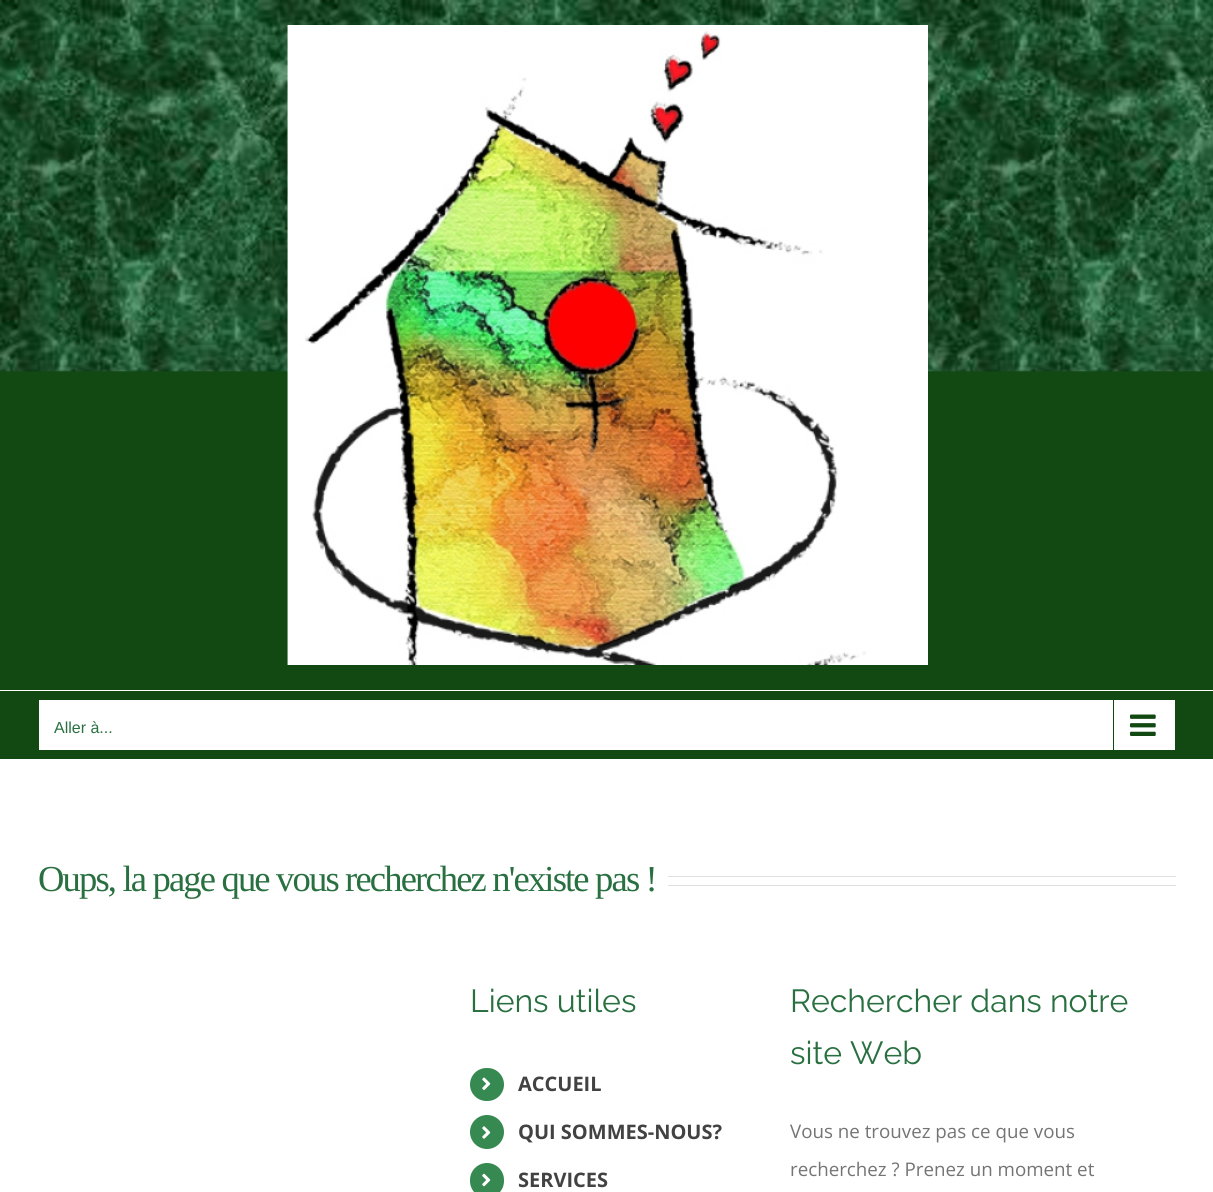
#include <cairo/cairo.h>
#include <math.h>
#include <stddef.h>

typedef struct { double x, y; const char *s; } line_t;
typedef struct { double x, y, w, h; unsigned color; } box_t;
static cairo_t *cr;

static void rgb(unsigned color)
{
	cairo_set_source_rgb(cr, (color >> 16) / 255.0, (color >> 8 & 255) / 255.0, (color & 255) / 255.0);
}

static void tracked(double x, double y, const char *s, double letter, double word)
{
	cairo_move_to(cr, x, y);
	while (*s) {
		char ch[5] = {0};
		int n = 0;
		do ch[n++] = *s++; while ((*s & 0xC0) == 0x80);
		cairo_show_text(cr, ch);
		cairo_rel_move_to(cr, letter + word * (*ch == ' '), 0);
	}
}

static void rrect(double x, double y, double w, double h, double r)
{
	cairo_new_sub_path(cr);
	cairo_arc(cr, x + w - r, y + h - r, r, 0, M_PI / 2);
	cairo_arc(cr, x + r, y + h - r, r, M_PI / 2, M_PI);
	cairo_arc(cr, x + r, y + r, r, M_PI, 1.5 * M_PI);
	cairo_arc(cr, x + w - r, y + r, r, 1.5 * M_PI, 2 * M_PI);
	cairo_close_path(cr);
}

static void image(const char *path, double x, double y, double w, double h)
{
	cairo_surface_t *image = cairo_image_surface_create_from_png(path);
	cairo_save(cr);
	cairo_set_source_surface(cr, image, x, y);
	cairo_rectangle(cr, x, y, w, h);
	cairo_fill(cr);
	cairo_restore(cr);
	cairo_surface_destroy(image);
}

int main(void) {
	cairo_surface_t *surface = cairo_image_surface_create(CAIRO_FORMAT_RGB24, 1213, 1192);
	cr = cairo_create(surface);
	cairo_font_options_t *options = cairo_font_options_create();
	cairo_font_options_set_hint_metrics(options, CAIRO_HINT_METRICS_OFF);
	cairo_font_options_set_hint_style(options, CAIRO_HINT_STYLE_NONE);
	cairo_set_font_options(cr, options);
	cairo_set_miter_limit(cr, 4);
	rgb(0xffffff);
	cairo_paint(cr);
	rgb(0x124812);
	cairo_rectangle(cr, 0, 371, 1213, 319);
	cairo_fill(cr);
	image("img/1.png", 0, 0, 1213, 372);
	image("img/2.png", 287, 25, 641, 640);
	{
		static const box_t items[] = {
			{0, 691, 1213, 68, 0x124812},
			{39, 700, 1136, 50, 0xffffff},
			{1113, 700, 1, 50, 0x124812},
		};
		for (size_t i = 0; i < sizeof items / sizeof *items; i++) {
			rgb(items[i].color);
			cairo_rectangle(cr, items[i].x, items[i].y, items[i].w, items[i].h);
			cairo_fill(cr);
		}
	}
	image("img/3.png", 1130, 714, 26, 22);
	rgb(0xe0dede);
	cairo_rectangle(cr, 668, 876, 508, 1);
	cairo_fill(cr);
	cairo_rectangle(cr, 668, 885, 508, 1);
	cairo_fill(cr);
	rgb(0x358951);
	rrect(470, 1068, 34, 33, 16.5);
	cairo_fill(cr);
	image("img/4.png", 482, 1077, 9, 13);
	cairo_arc(cr, 487, 1132, 17, 0, 2 * M_PI);
	cairo_fill(cr);
	image("img/5.png", 482, 1126, 9, 13);
	rrect(470, 1163, 34, 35, 17);
	cairo_fill(cr);
	image("img/6.png", 482, 1173, 9, 14);
	cairo_select_font_face(cr, "Liberation Sans", CAIRO_FONT_SLANT_NORMAL, CAIRO_FONT_WEIGHT_NORMAL);
	cairo_set_font_size(cr, 16);
	rgb(0x297041);
	cairo_move_to(cr, 54, 733);
	cairo_show_text(cr, "Aller à...");
	cairo_select_font_face(cr, "Liberation Serif", CAIRO_FONT_SLANT_NORMAL, CAIRO_FONT_WEIGHT_NORMAL);
	cairo_set_font_size(cr, 36.6);
	tracked(38, 891, "Oups, la page que vous recherchez n'existe pas !", -1.85, 0);
	cairo_select_font_face(cr, "Raleway", CAIRO_FONT_SLANT_NORMAL, CAIRO_FONT_WEIGHT_NORMAL);
	cairo_set_font_size(cr, 32);
	cairo_move_to(cr, 470, 1012);
	cairo_show_text(cr, "Liens utiles");
	cairo_select_font_face(cr, "Open Sans", CAIRO_FONT_SLANT_NORMAL, CAIRO_FONT_WEIGHT_BOLD);
	cairo_set_font_size(cr, 20);
	rgb(0x424242);
	{
		static const line_t items[] = {
			{518, 1091, "ACCUEIL"},
			{518, 1139, "QUI SOMMES-NOUS?"},
			{518, 1187, "SERVICES"},
		};
		for (size_t i = 0; i < sizeof items / sizeof *items; i++) {
			cairo_move_to(cr, items[i].x, items[i].y);
			cairo_show_text(cr, items[i].s);
		}
	}
	cairo_select_font_face(cr, "Raleway", CAIRO_FONT_SLANT_NORMAL, CAIRO_FONT_WEIGHT_NORMAL);
	cairo_set_font_size(cr, 32);
	rgb(0x297041);
	cairo_move_to(cr, 790, 1012);
	cairo_show_text(cr, "Rechercher dans notre");
	cairo_move_to(cr, 790, 1064);
	cairo_show_text(cr, "site Web");
	cairo_select_font_face(cr, "Open Sans", CAIRO_FONT_SLANT_NORMAL, CAIRO_FONT_WEIGHT_NORMAL);
	cairo_set_font_size(cr, 18.75);
	rgb(0x747474);
	cairo_move_to(cr, 790, 1138);
	cairo_show_text(cr, "Vous ne trouvez pas ce que vous");
	cairo_move_to(cr, 790, 1176);
	cairo_show_text(cr, "recherchez ? Prenez un moment et");
	cairo_surface_write_to_png(surface, "page.png");
	cairo_font_options_destroy(options);
	cairo_destroy(cr);
	cairo_surface_destroy(surface);
	return 0;
}
